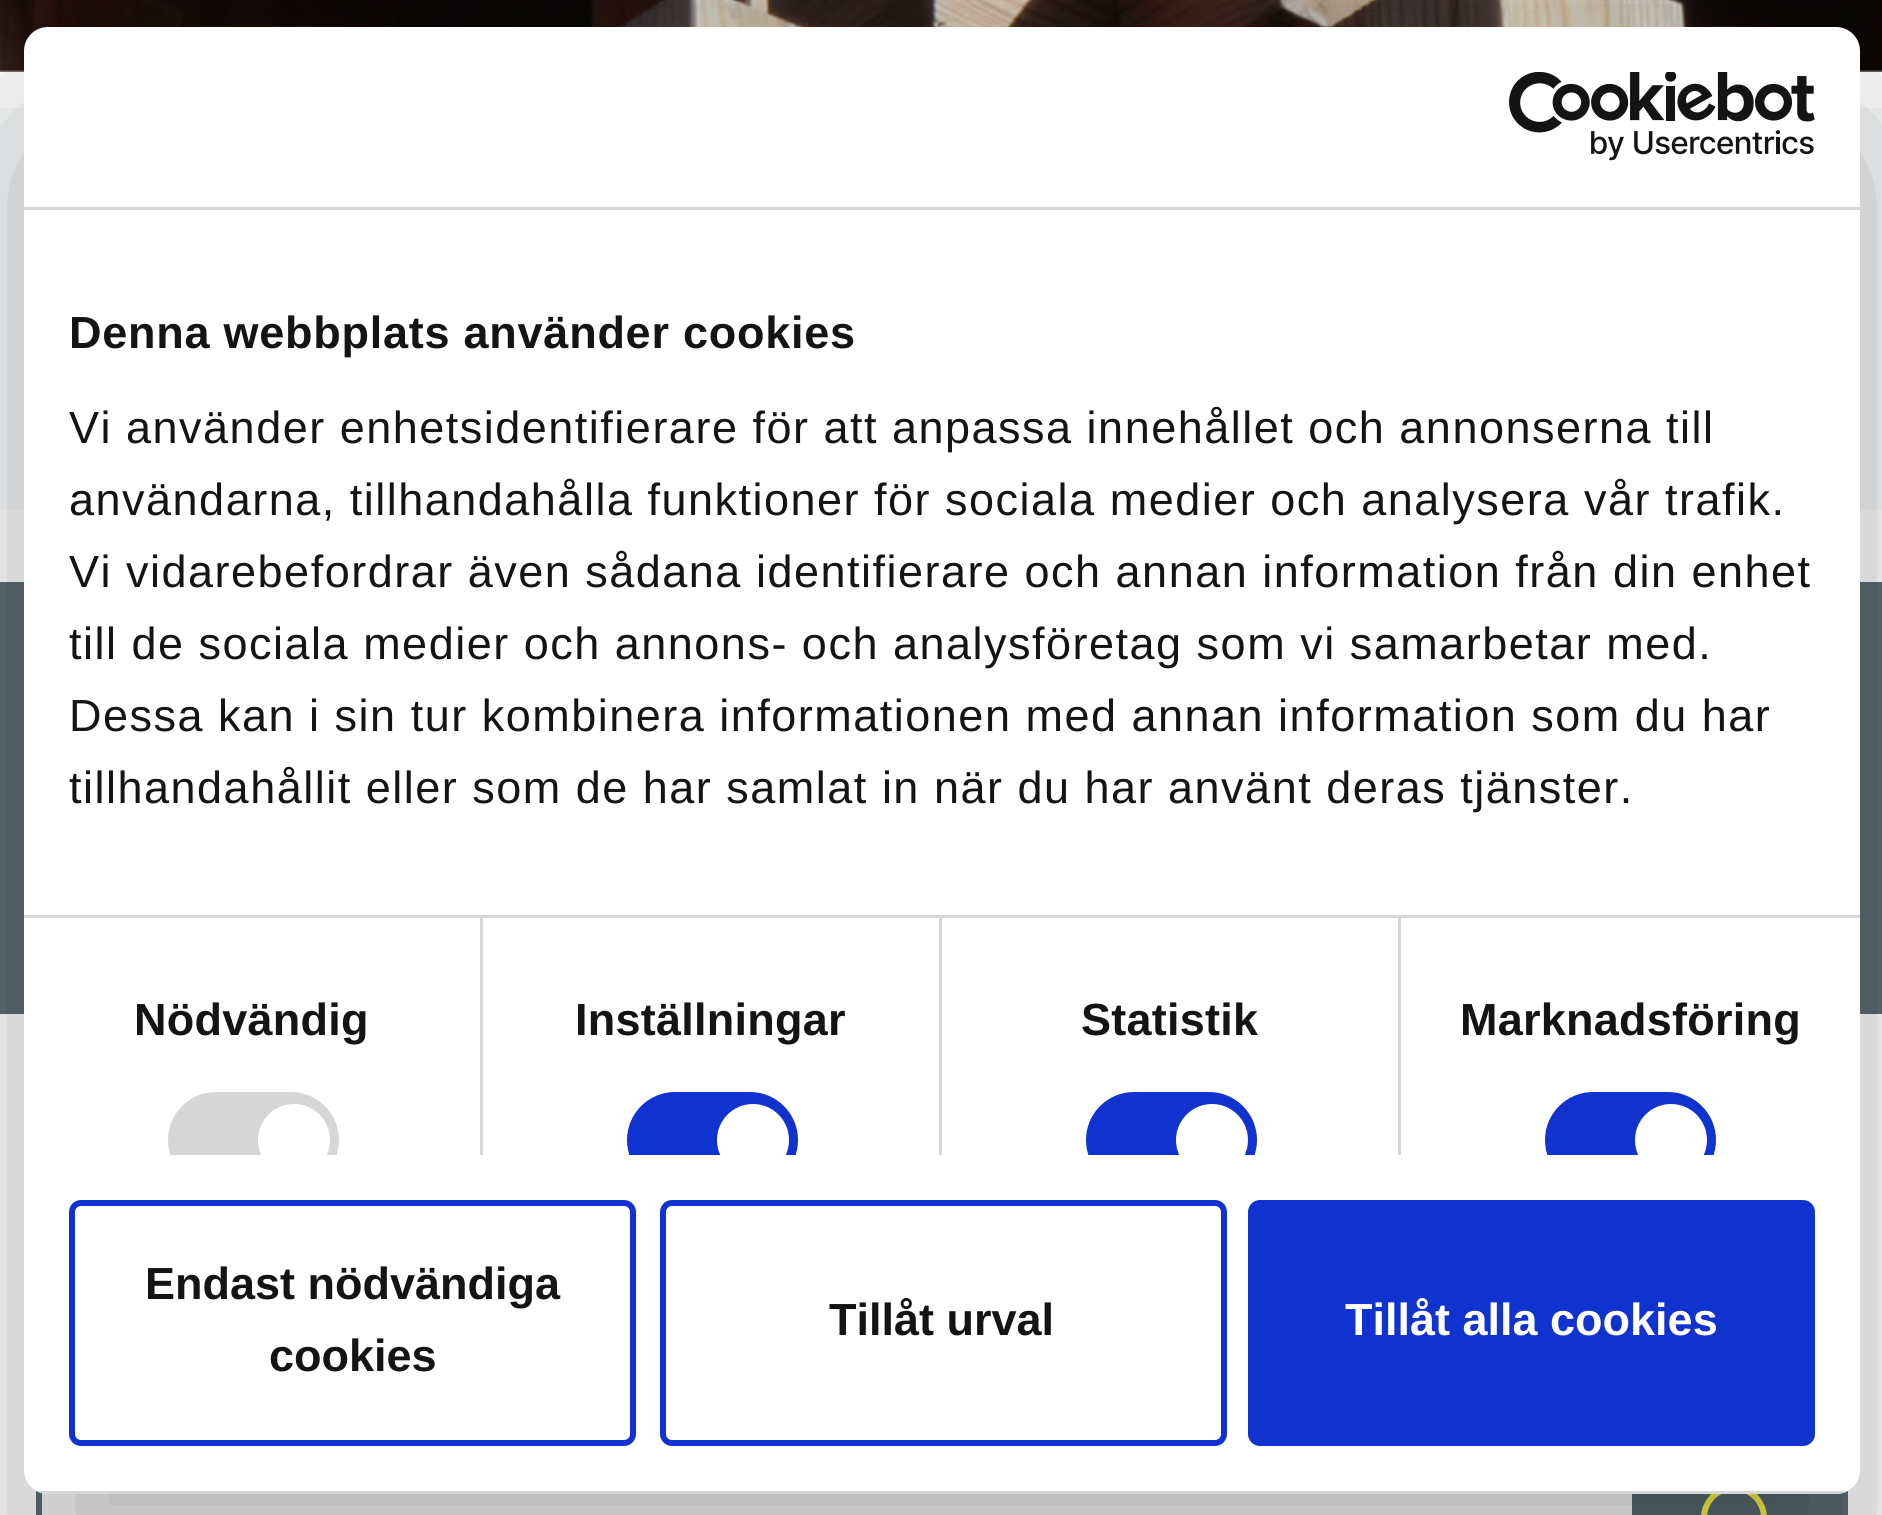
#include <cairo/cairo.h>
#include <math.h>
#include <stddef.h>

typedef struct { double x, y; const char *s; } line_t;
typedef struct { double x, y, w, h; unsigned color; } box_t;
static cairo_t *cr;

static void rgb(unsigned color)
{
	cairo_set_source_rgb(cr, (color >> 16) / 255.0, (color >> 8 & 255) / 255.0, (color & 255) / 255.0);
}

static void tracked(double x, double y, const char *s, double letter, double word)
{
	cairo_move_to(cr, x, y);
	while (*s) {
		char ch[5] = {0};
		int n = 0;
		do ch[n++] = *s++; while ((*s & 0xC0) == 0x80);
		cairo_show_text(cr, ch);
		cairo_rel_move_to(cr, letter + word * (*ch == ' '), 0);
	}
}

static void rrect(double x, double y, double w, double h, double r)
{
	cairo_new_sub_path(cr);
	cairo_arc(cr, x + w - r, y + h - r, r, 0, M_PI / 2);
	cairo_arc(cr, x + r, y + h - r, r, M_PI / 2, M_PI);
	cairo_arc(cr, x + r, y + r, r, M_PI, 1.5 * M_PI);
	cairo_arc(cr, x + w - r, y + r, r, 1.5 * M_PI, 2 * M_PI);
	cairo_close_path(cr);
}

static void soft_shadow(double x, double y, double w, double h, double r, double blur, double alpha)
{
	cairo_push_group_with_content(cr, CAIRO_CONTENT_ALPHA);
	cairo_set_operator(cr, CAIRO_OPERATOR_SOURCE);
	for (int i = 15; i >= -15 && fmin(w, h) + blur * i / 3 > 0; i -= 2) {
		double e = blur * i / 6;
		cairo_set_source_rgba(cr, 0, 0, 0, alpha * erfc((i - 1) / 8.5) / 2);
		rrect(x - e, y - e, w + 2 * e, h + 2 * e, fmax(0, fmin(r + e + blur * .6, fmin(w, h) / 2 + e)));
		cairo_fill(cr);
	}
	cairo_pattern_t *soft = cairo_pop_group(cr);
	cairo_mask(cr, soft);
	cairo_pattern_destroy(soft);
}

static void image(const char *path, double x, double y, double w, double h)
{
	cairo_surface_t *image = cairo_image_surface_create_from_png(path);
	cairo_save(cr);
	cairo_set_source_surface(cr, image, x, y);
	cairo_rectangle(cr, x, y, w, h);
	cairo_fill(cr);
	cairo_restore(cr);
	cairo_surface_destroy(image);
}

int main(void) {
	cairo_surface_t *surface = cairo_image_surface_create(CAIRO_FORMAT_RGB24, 1882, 1515);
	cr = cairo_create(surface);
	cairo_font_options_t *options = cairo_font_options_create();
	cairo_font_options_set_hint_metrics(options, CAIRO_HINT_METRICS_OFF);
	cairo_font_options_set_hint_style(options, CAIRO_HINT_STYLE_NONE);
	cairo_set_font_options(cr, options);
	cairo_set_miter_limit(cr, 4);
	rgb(0xffffff);
	cairo_paint(cr);
	image("img/1.png", 0, 0, 1882, 72);
	{
		static const box_t items[] = {
			{0, 108, 1882, 402, 0xf6f8f9},
			{0, 582, 24, 432, 0x5c6d74},
			{1860, 582, 22, 432, 0x5c6d74},
		};
		for (size_t i = 0; i < sizeof items / sizeof *items; i++) {
			rgb(items[i].color);
			cairo_rectangle(cr, items[i].x, items[i].y, items[i].w, items[i].h);
			cairo_fill(cr);
		}
	}
	cairo_rectangle(cr, 39, 1419, 1806, 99);
	cairo_set_line_width(cr, 6);
	cairo_stroke(cr);
	cairo_rectangle(cr, 1632, 1490, 210, 25);
	cairo_fill(cr);
	cairo_arc(cr, 1734, 1518, 30, 0, 2 * M_PI);
	rgb(0xfffc4d);
	cairo_stroke(cr);
	rgb(0x000000);
	soft_shadow(24, 123, 1836, 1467, 24, 102, 0.3);
	rgb(0xffffff);
	rrect(24, 27, 1836, 1467, 24);
	cairo_fill(cr);
	rgb(0xd6d6d6);
	cairo_rectangle(cr, 24, 207, 1836, 3);
	cairo_fill(cr);
	image("img/2.png", 1509, 72, 306, 89);
	cairo_rectangle(cr, 24, 915, 1836, 3);
	cairo_fill(cr);
	cairo_rectangle(cr, 480, 918, 3, 237);
	cairo_fill(cr);
	cairo_save(cr);
	cairo_rectangle(cr, 24, 210, 1836, 945);
	cairo_clip(cr);
	rrect(168, 1092, 171, 96, 48);
	cairo_fill(cr);
	rgb(0xffffff);
	cairo_arc(cr, 294, 1140, 36, 0, 2 * M_PI);
	cairo_fill(cr);
	cairo_restore(cr);
	cairo_rectangle(cr, 939, 918, 3, 237);
	cairo_fill(cr);
	cairo_save(cr);
	cairo_rectangle(cr, 24, 210, 1836, 945);
	cairo_clip(cr);
	rgb(0x1032cf);
	rrect(627, 1092, 171, 96, 48);
	cairo_fill(cr);
	rgb(0xffffff);
	cairo_arc(cr, 753, 1140, 36, 0, 2 * M_PI);
	cairo_fill(cr);
	cairo_restore(cr);
	cairo_rectangle(cr, 1398, 918, 3, 237);
	cairo_fill(cr);
	cairo_save(cr);
	cairo_rectangle(cr, 24, 210, 1836, 945);
	cairo_clip(cr);
	rgb(0x1032cf);
	rrect(1086, 1092, 171, 96, 48);
	cairo_fill(cr);
	rgb(0xffffff);
	cairo_arc(cr, 1212, 1140, 36, 0, 2 * M_PI);
	cairo_fill(cr);
	rgb(0x1032cf);
	rrect(1545, 1092, 171, 96, 48);
	cairo_fill(cr);
	rgb(0xffffff);
	cairo_arc(cr, 1671, 1140, 36, 0, 2 * M_PI);
	cairo_fill(cr);
	cairo_restore(cr);
	cairo_save(cr);
	rrect(24, 27, 1836, 1467, 24);
	cairo_clip(cr);
	cairo_rectangle(cr, 36, 1491, 1812, 3);
	cairo_fill(cr);
	cairo_restore(cr);
	rrect(72, 1203, 561, 240, 9);
	rgb(0x1032cf);
	cairo_stroke(cr);
	rrect(663, 1203, 561, 240, 9);
	cairo_stroke(cr);
	rrect(1251, 1203, 561, 240, 9);
	cairo_fill_preserve(cr);
	cairo_stroke(cr);
	cairo_select_font_face(cr, "Liberation Sans", CAIRO_FONT_SLANT_NORMAL, CAIRO_FONT_WEIGHT_BOLD);
	cairo_set_font_size(cr, 45);
	rgb(0x141414);
	tracked(69, 348, "Denna webbplats använder cookies", 0.75, 0);
	cairo_select_font_face(cr, "Liberation Sans", CAIRO_FONT_SLANT_NORMAL, CAIRO_FONT_WEIGHT_NORMAL);
	{
		static const line_t items[] = {
			{69, 443, "Vi använder enhetsidentifierare för att anpassa innehållet och annonserna till"},
			{69, 515, "användarna, tillhandahålla funktioner för sociala medier och analysera vår trafik."},
			{69, 587, "Vi vidarebefordrar även sådana identifierare och annan information från din enhet"},
			{69, 659, "till de sociala medier och annons- och analysföretag som vi samarbetar med."},
			{69, 731, "Dessa kan i sin tur kombinera informationen med annan information som du har"},
			{69, 803, "tillhandahållit eller som de har samlat in när du har använt deras tjänster."},
		};
		for (size_t i = 0; i < sizeof items / sizeof *items; i++) {
			tracked(items[i].x, items[i].y, items[i].s, 1.5, 0);
		}
	}
	cairo_select_font_face(cr, "Liberation Sans", CAIRO_FONT_SLANT_NORMAL, CAIRO_FONT_WEIGHT_BOLD);
	{
		static const line_t items[] = {
			{134, 1035, "Nödvändig"},
			{575, 1035, "Inställningar"},
			{1081, 1035, "Statistik"},
			{1460, 1035, "Marknadsföring"},
		};
		for (size_t i = 0; i < sizeof items / sizeof *items; i++) {
			tracked(items[i].x, items[i].y, items[i].s, 0.25, 0);
		}
	}
	{
		static const line_t items[] = {
			{145, 1299, "Endast nödvändiga"},
			{269, 1371, "cookies"},
			{829, 1335, "Tillåt urval"},
		};
		for (size_t i = 0; i < sizeof items / sizeof *items; i++) {
			cairo_move_to(cr, items[i].x, items[i].y);
			cairo_show_text(cr, items[i].s);
		}
	}
	rgb(0xffffff);
	cairo_move_to(cr, 1345, 1335);
	cairo_show_text(cr, "Tillåt alla cookies");
	cairo_surface_write_to_png(surface, "page.png");
	cairo_font_options_destroy(options);
	cairo_destroy(cr);
	cairo_surface_destroy(surface);
	return 0;
}
